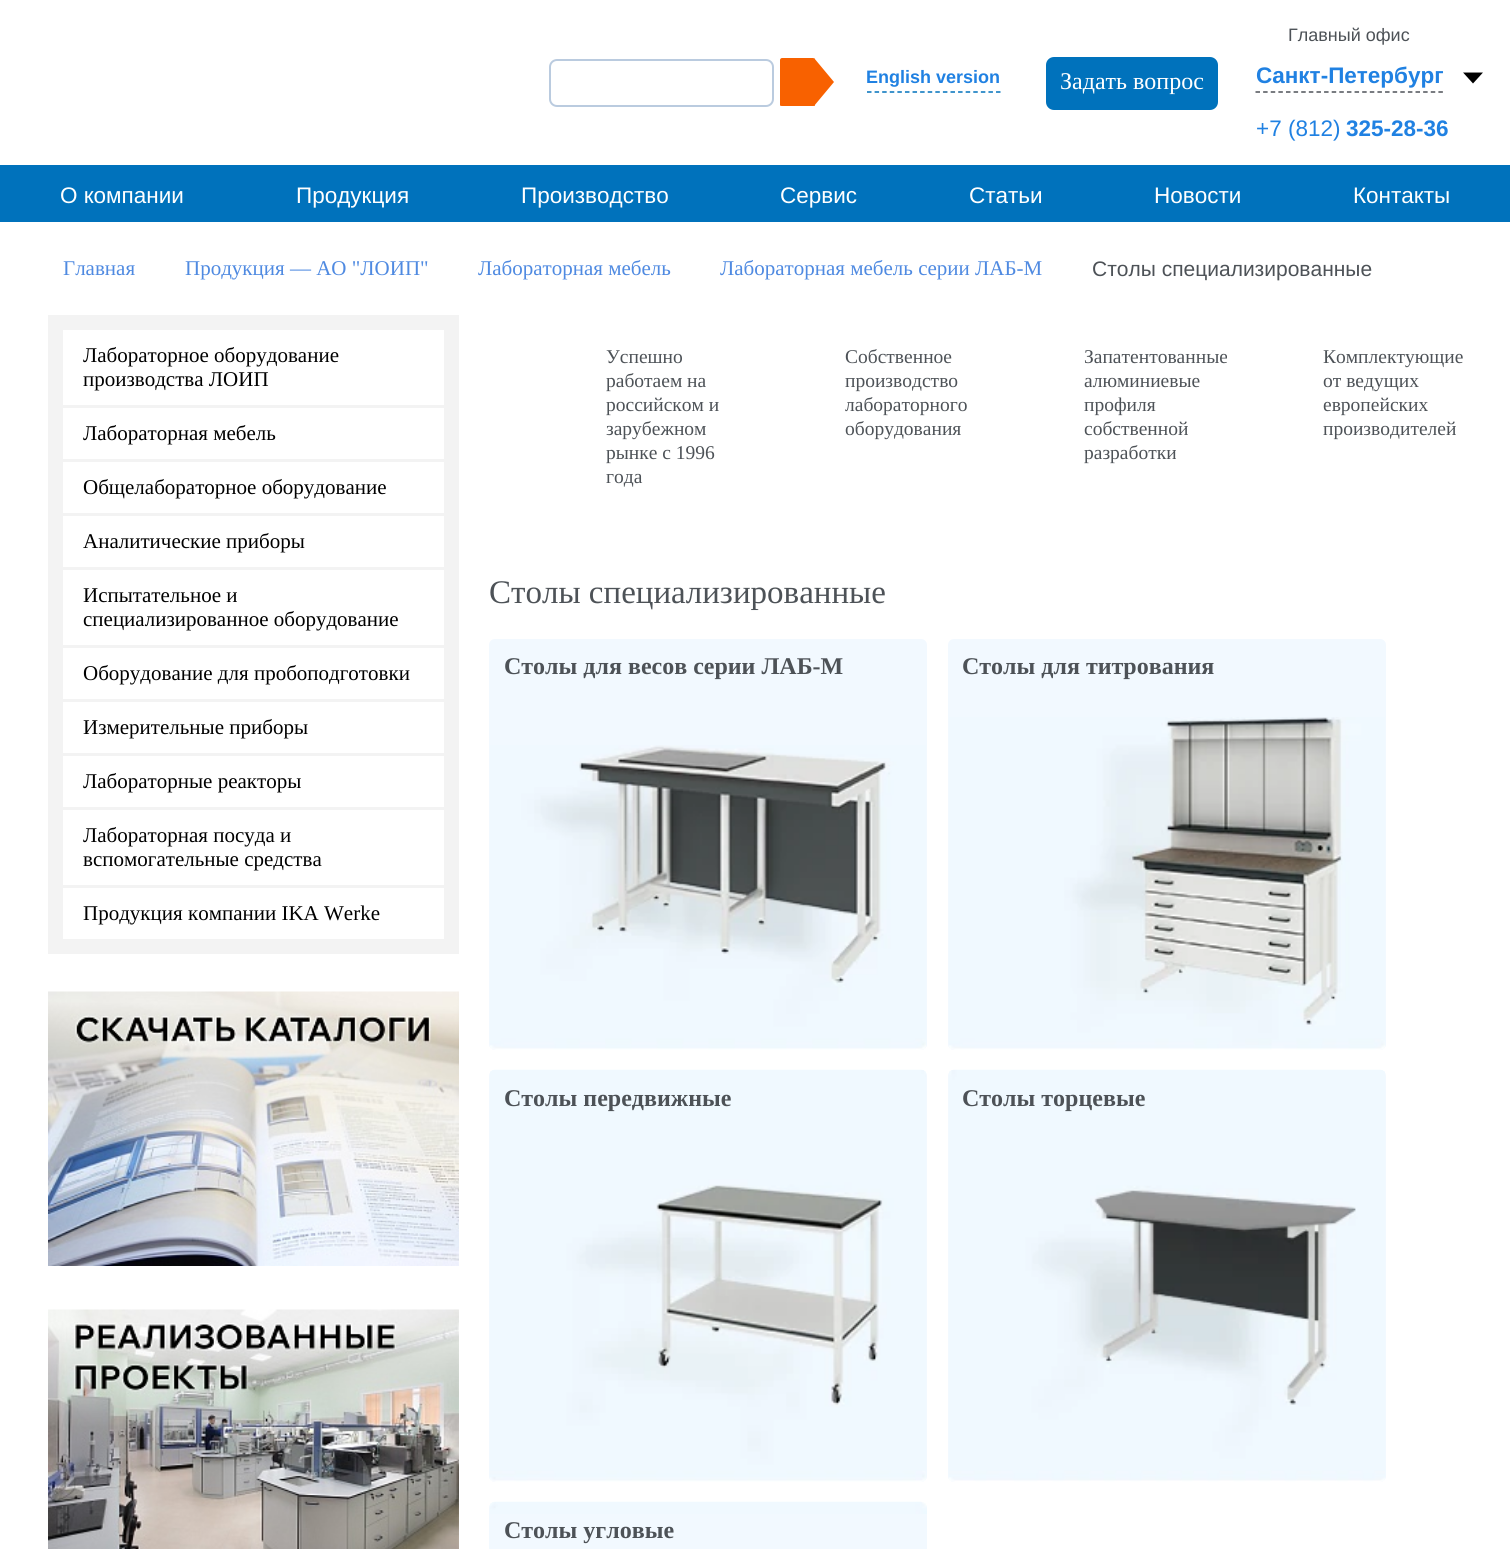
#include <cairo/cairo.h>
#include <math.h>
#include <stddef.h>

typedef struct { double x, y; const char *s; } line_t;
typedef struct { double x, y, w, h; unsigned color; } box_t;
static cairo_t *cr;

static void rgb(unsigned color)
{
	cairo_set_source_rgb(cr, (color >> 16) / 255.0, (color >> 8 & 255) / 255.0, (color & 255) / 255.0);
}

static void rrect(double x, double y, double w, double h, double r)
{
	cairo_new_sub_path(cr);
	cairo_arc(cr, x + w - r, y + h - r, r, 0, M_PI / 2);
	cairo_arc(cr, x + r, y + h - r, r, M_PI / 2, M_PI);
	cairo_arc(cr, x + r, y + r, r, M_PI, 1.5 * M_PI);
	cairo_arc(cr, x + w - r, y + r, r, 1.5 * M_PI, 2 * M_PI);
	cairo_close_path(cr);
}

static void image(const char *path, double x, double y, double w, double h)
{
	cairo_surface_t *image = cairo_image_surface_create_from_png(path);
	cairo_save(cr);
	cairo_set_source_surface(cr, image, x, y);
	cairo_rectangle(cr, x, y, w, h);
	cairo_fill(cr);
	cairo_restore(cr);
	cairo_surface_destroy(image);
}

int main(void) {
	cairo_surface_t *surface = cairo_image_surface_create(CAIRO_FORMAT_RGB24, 1510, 1549);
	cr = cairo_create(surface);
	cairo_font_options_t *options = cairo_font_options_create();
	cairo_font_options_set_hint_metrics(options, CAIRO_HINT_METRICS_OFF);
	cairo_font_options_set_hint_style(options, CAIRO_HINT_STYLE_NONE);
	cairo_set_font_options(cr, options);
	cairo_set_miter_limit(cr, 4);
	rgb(0xffffff);
	cairo_paint(cr);
	rrect(550, 60, 223, 46, 7);
	rgb(0xbacbdf);
	cairo_stroke(cr);
	rgb(0xf86100);
	cairo_new_path(cr);
	cairo_move_to(cr, 815, 60);
	cairo_line_to(cr, 815, 105);
	cairo_curve_to(cr, 815, 106, 814, 106, 813, 106);
	cairo_line_to(cr, 782, 106);
	cairo_curve_to(cr, 781, 106, 780, 106, 780, 105);
	cairo_line_to(cr, 780, 60);
	cairo_curve_to(cr, 780, 59, 781, 58, 782, 58);
	cairo_line_to(cr, 813, 58);
	cairo_curve_to(cr, 814, 58, 815, 59, 815, 60);
	cairo_close_path(cr);
	cairo_fill(cr);
	cairo_new_path(cr);
	cairo_move_to(cr, 814, 106);
	cairo_line_to(cr, 814, 58);
	cairo_line_to(cr, 834, 82);
	cairo_close_path(cr);
	cairo_fill(cr);
	cairo_new_path(cr);
	cairo_move_to(cr, 867, 92);
	cairo_line_to(cr, 1000.5, 92);
	rgb(0x0071bb);
	cairo_set_line_width(cr, 1.5);
	cairo_set_dash(cr, (double[]){4.5, 3.09}, 2, 0);
	cairo_stroke(cr);
	rgb(0x0072bc);
	rrect(1046, 57, 172, 53, 8);
	cairo_fill(cr);
	cairo_new_path(cr);
	cairo_move_to(cr, 1255.5, 92);
	cairo_line_to(cr, 1443, 92);
	rgb(0x4d5157);
	cairo_set_dash(cr, (double[]){4.5, 3.12}, 2, 0);
	cairo_stroke(cr);
	rgb(0x000000);
	cairo_new_path(cr);
	cairo_move_to(cr, 1473, 83.5);
	cairo_line_to(cr, 1463, 72.5);
	cairo_line_to(cr, 1483, 72.5);
	cairo_close_path(cr);
	cairo_fill(cr);
	{
		static const box_t items[] = {
			{0, 165, 1510, 57, 0x0072bc},
			{48, 315, 396, 15, 0xf3f3f3},
			{444, 315, 15, 624, 0xf3f3f3},
			{48, 939, 411, 15, 0xf3f3f3},
			{63, 405, 381, 3, 0xf3f3f3},
			{48, 330, 15, 609, 0xf3f3f3},
			{63, 459, 381, 3, 0xf3f3f3},
			{63, 513, 381, 3, 0xf3f3f3},
			{63, 567, 381, 3, 0xf3f3f3},
			{63, 645, 381, 3, 0xf3f3f3},
			{63, 699, 381, 3, 0xf3f3f3},
			{63, 753, 381, 3, 0xf3f3f3},
			{63, 807, 381, 3, 0xf3f3f3},
			{63, 885, 381, 3, 0xf3f3f3},
		};
		for (size_t i = 0; i < sizeof items / sizeof *items; i++) {
			rgb(items[i].color);
			cairo_rectangle(cr, items[i].x, items[i].y, items[i].w, items[i].h);
			cairo_fill(cr);
		}
	}
	image("img/1.png", 48, 991, 411, 275);
	image("img/2.png", 48, 1309, 411, 240);
	rgb(0xf2f9ff);
	rrect(489, 639, 438, 411, 6);
	cairo_fill(cr);
	image("img/3.png", 490, 745, 436, 305);
	rrect(948, 639, 438, 411, 6);
	cairo_fill(cr);
	image("img/4.png", 949, 717, 436, 333);
	rrect(489, 1070, 438, 412, 6);
	cairo_fill(cr);
	image("img/5.png", 490, 1069, 436, 413);
	rrect(948, 1070, 438, 412, 6);
	cairo_fill(cr);
	image("img/6.png", 949, 1069, 436, 413);
	rrect(489, 1502, 438, 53, 6);
	cairo_fill(cr);
	image("img/7.png", 490, 1501, 437, 13);
	cairo_select_font_face(cr, "Liberation Sans", CAIRO_FONT_SLANT_NORMAL, CAIRO_FONT_WEIGHT_BOLD);
	cairo_set_font_size(cr, 18);
	rgb(0x2081e2);
	cairo_move_to(cr, 866, 83);
	cairo_show_text(cr, "English version");
	cairo_select_font_face(cr, "Liberation Serif", CAIRO_FONT_SLANT_NORMAL, CAIRO_FONT_WEIGHT_NORMAL);
	cairo_set_font_size(cr, 24);
	rgb(0xffffff);
	cairo_move_to(cr, 1060, 89);
	cairo_show_text(cr, "Задать вопрос");
	cairo_select_font_face(cr, "Liberation Sans", CAIRO_FONT_SLANT_NORMAL, CAIRO_FONT_WEIGHT_NORMAL);
	cairo_set_font_size(cr, 18);
	rgb(0x4d5257);
	cairo_move_to(cr, 1288, 41);
	cairo_show_text(cr, "Главный офис");
	cairo_select_font_face(cr, "Liberation Sans", CAIRO_FONT_SLANT_NORMAL, CAIRO_FONT_WEIGHT_BOLD);
	cairo_set_font_size(cr, 22.5);
	rgb(0x2081e2);
	cairo_move_to(cr, 1256, 83);
	cairo_show_text(cr, "Санкт-Петербург");
	cairo_select_font_face(cr, "Liberation Sans", CAIRO_FONT_SLANT_NORMAL, CAIRO_FONT_WEIGHT_NORMAL);
	cairo_move_to(cr, 1256, 136);
	cairo_show_text(cr, "+7 (812)");
	cairo_select_font_face(cr, "Liberation Sans", CAIRO_FONT_SLANT_NORMAL, CAIRO_FONT_WEIGHT_BOLD);
	cairo_move_to(cr, 1346, 136);
	cairo_show_text(cr, "325-28-36");
	cairo_select_font_face(cr, "Liberation Sans", CAIRO_FONT_SLANT_NORMAL, CAIRO_FONT_WEIGHT_NORMAL);
	rgb(0xffffff);
	{
		static const line_t items[] = {
			{60, 203, "О компании"},
			{296, 203, "Продукция"},
			{521, 203, "Производство"},
			{780, 203, "Сервис"},
			{969, 203, "Статьи"},
			{1154, 203, "Новости"},
			{1353, 203, "Контакты"},
		};
		for (size_t i = 0; i < sizeof items / sizeof *items; i++) {
			cairo_move_to(cr, items[i].x, items[i].y);
			cairo_show_text(cr, items[i].s);
		}
	}
	cairo_select_font_face(cr, "Liberation Serif", CAIRO_FONT_SLANT_NORMAL, CAIRO_FONT_WEIGHT_NORMAL);
	cairo_set_font_size(cr, 21);
	rgb(0x4f8ae1);
	{
		static const line_t items[] = {
			{63, 275, "Главная"},
			{185, 275, "Продукция — АО \"ЛОИП\""},
			{478, 275, "Лабораторная мебель"},
			{720, 275, "Лабораторная мебель серии ЛАБ-М"},
		};
		for (size_t i = 0; i < sizeof items / sizeof *items; i++) {
			cairo_move_to(cr, items[i].x, items[i].y);
			cairo_show_text(cr, items[i].s);
		}
	}
	cairo_select_font_face(cr, "Liberation Sans", CAIRO_FONT_SLANT_NORMAL, CAIRO_FONT_WEIGHT_NORMAL);
	rgb(0x4d5257);
	cairo_move_to(cr, 1092, 276);
	cairo_show_text(cr, "Столы специализированные");
	cairo_select_font_face(cr, "Liberation Serif", CAIRO_FONT_SLANT_NORMAL, CAIRO_FONT_WEIGHT_NORMAL);
	rgb(0x000000);
	{
		static const line_t items[] = {
			{83, 362, "Лабораторное оборудование"},
			{83, 386, "производства ЛОИП"},
			{83, 440, "Лабораторная мебель"},
			{83, 494, "Общелабораторное оборудование"},
			{83, 548, "Аналитические приборы"},
			{83, 602, "Испытательное и"},
			{83, 626, "специализированное оборудование"},
			{83, 680, "Оборудование для пробоподготовки"},
			{83, 734, "Измерительные приборы"},
			{83, 788, "Лабораторные реакторы"},
			{83, 842, "Лабораторная посуда и"},
			{83, 866, "вспомогательные средства"},
			{83, 920, "Продукция компании IKA Werke"},
		};
		for (size_t i = 0; i < sizeof items / sizeof *items; i++) {
			cairo_move_to(cr, items[i].x, items[i].y);
			cairo_show_text(cr, items[i].s);
		}
	}
	cairo_set_font_size(cr, 19.5);
	rgb(0x4d5257);
	{
		static const line_t items[] = {
			{606, 363, "Успешно"},
			{606, 387, "работаем на"},
			{606, 411, "российском и"},
			{606, 435, "зарубежном"},
			{606, 459, "рынке с 1996"},
			{606, 483, "года"},
			{845, 363, "Собственное"},
			{845, 387, "производство"},
			{845, 411, "лабораторного"},
			{845, 435, "оборудования"},
			{1084, 363, "Запатентованные"},
			{1084, 387, "алюминиевые"},
			{1084, 411, "профиля"},
			{1084, 435, "собственной"},
			{1084, 459, "разработки"},
			{1323, 363, "Комплектующие"},
			{1323, 387, "от ведущих"},
			{1323, 411, "европейских"},
			{1323, 435, "производителей"},
		};
		for (size_t i = 0; i < sizeof items / sizeof *items; i++) {
			cairo_move_to(cr, items[i].x, items[i].y);
			cairo_show_text(cr, items[i].s);
		}
	}
	cairo_set_font_size(cr, 33);
	cairo_move_to(cr, 489, 603);
	cairo_show_text(cr, "Столы специализированные");
	cairo_select_font_face(cr, "Liberation Serif", CAIRO_FONT_SLANT_NORMAL, CAIRO_FONT_WEIGHT_BOLD);
	cairo_set_font_size(cr, 24);
	{
		static const line_t items[] = {
			{504, 674, "Столы для весов серии ЛАБ-М"},
			{962, 674, "Столы для титрования"},
			{504, 1106, "Столы передвижные"},
			{962, 1106, "Столы торцевые"},
			{504, 1538, "Столы угловые"},
		};
		for (size_t i = 0; i < sizeof items / sizeof *items; i++) {
			cairo_move_to(cr, items[i].x, items[i].y);
			cairo_show_text(cr, items[i].s);
		}
	}
	cairo_surface_write_to_png(surface, "page.png");
	cairo_font_options_destroy(options);
	cairo_destroy(cr);
	cairo_surface_destroy(surface);
	return 0;
}
